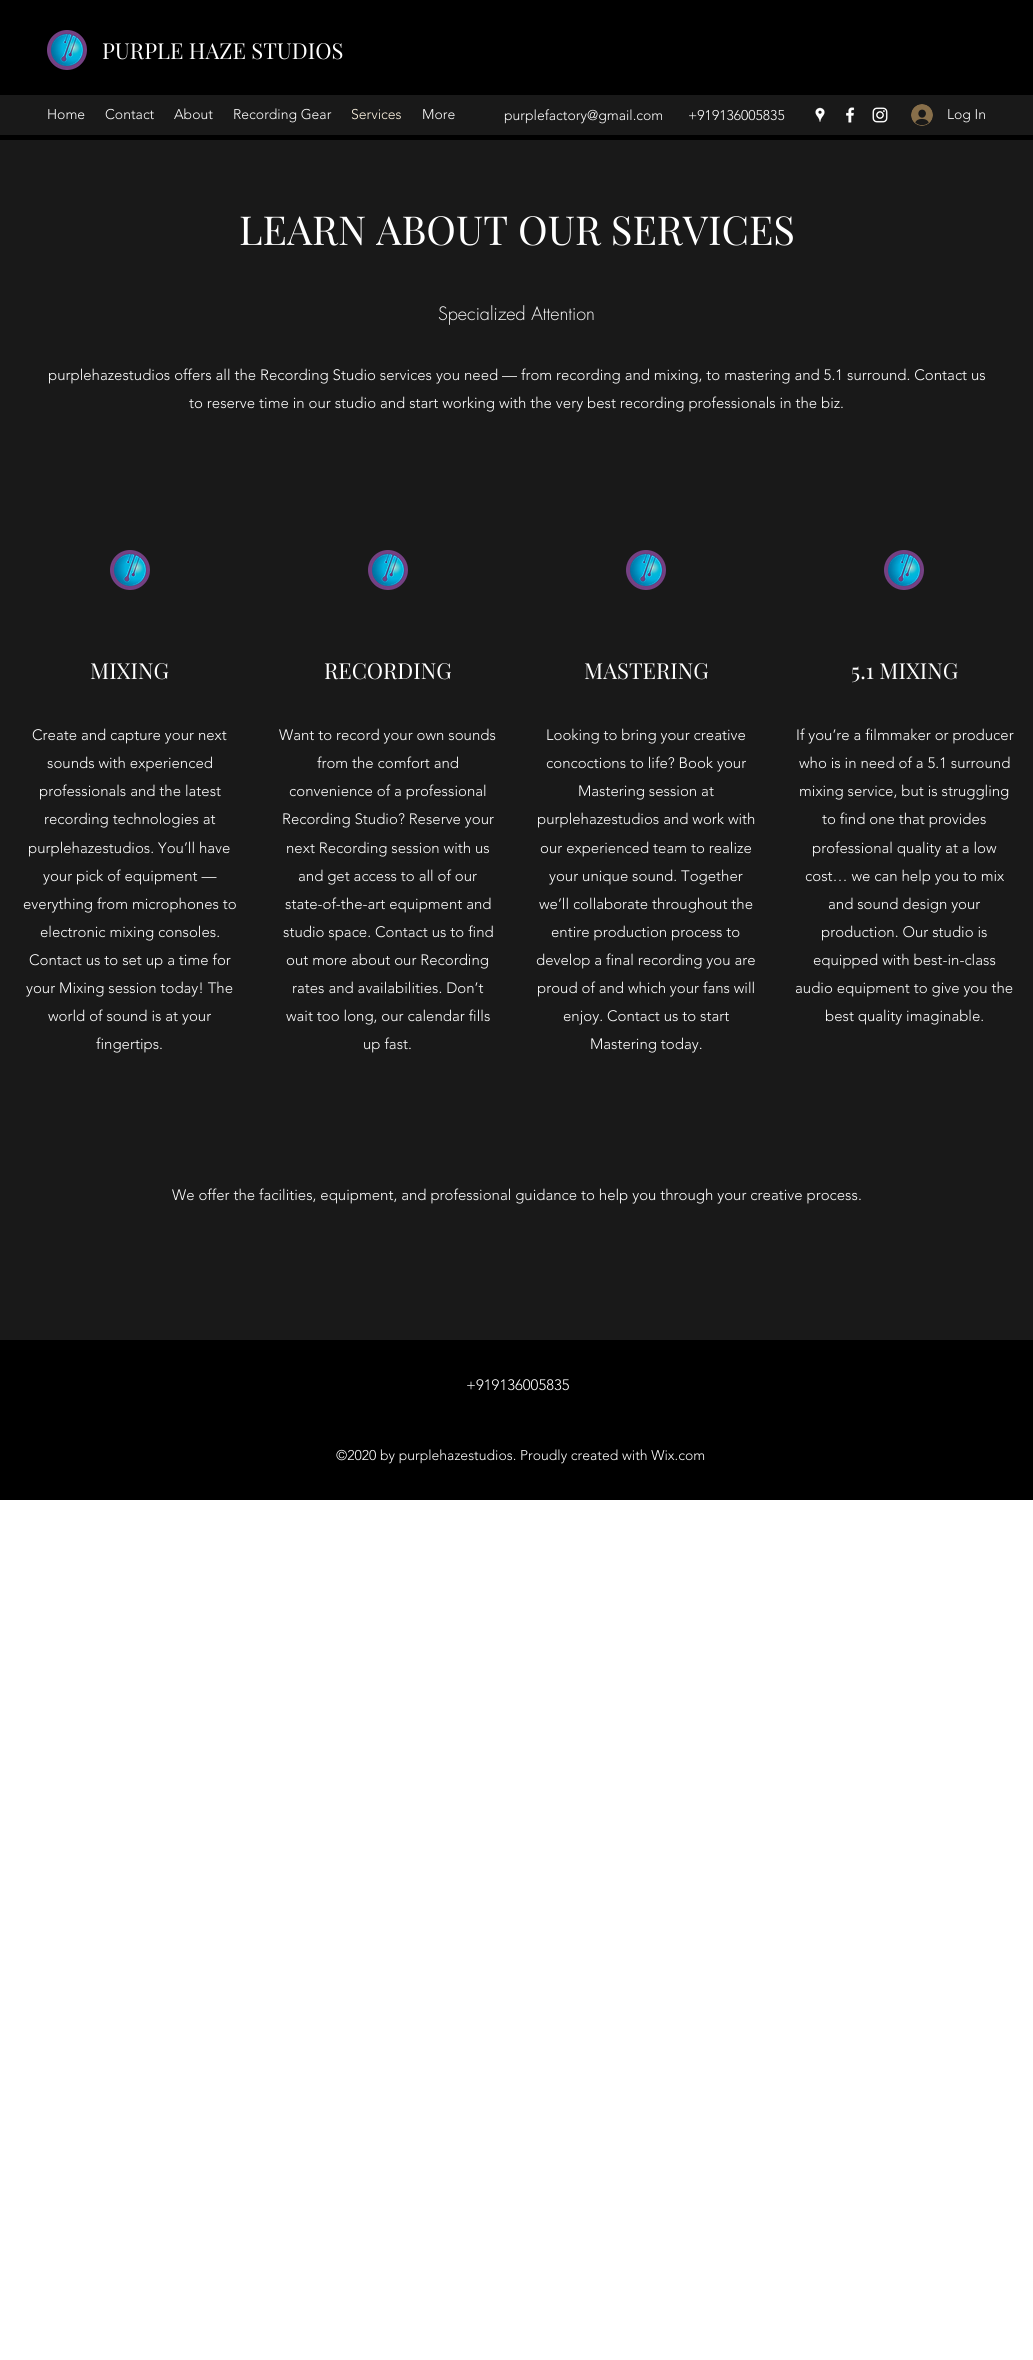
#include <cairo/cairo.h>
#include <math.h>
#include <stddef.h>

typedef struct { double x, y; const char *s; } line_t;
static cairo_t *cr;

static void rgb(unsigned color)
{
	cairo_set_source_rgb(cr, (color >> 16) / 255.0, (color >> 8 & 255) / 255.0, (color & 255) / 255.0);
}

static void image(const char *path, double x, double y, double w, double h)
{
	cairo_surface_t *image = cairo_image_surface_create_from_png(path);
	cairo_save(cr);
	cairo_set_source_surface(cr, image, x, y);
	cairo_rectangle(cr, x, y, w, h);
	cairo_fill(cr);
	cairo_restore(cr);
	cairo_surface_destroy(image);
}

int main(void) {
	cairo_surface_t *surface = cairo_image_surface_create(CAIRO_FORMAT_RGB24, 1033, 2360);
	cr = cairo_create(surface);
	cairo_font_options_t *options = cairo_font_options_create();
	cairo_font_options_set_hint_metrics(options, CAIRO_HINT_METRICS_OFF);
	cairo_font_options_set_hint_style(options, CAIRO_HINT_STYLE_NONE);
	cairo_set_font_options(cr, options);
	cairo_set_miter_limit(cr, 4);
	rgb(0xffffff);
	cairo_paint(cr);
	rgb(0x000000);
	cairo_rectangle(cr, 0, 0, 1033, 140);
	cairo_fill(cr);
	image("img/1.png", 47, 30, 40, 40);
	rgb(0x191919);
	cairo_rectangle(cr, 0, 95, 1033, 40);
	cairo_fill(cr);
	image("img/2.png", 815, 107, 10, 15);
	image("img/3.png", 846, 107, 9, 16);
	image("img/4.png", 872, 107, 16, 16);
	image("img/5.png", 911, 104, 22, 22);
	cairo_rectangle(cr, 0, 140, 1033, 1200);
	cairo_fill(cr);
	image("img/6.png", 110, 550, 40, 40);
	image("img/6.png", 368, 550, 40, 40);
	image("img/6.png", 626, 550, 40, 40);
	image("img/6.png", 884, 550, 40, 40);
	rgb(0x000000);
	cairo_rectangle(cr, 0, 1340, 1033, 160);
	cairo_fill(cr);
	cairo_select_font_face(cr, "Playfair Display", CAIRO_FONT_SLANT_NORMAL, CAIRO_FONT_WEIGHT_NORMAL);
	cairo_set_font_size(cr, 22);
	rgb(0xffffff);
	cairo_move_to(cr, 102, 59);
	cairo_show_text(cr, "PURPLE HAZE STUDIOS");
	cairo_select_font_face(cr, "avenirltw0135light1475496 Light", CAIRO_FONT_SLANT_NORMAL, CAIRO_FONT_WEIGHT_NORMAL);
	cairo_set_font_size(cr, 14);
	{
		static const line_t items[] = {
			{47, 119, "Home"},
			{105, 119, "Contact"},
			{174, 119, "About"},
			{233, 119, "Recording Gear"},
		};
		for (size_t i = 0; i < sizeof items / sizeof *items; i++) {
			cairo_move_to(cr, items[i].x, items[i].y);
			cairo_show_text(cr, items[i].s);
		}
	}
	rgb(0xfff5e2);
	cairo_move_to(cr, 351, 119);
	cairo_show_text(cr, "Services");
	rgb(0xffffff);
	{
		static const line_t items[] = {
			{422, 119, "More"},
			{504, 120, "purplefactory@gmail.com"},
			{688, 120, "+919136005835"},
			{947, 119, "Log In"},
		};
		for (size_t i = 0; i < sizeof items / sizeof *items; i++) {
			cairo_move_to(cr, items[i].x, items[i].y);
			cairo_show_text(cr, items[i].s);
		}
	}
	cairo_select_font_face(cr, "Playfair Display", CAIRO_FONT_SLANT_NORMAL, CAIRO_FONT_WEIGHT_NORMAL);
	cairo_set_font_size(cr, 40);
	cairo_move_to(cr, 239, 245);
	cairo_show_text(cr, "LEARN ABOUT OUR SERVICES");
	cairo_select_font_face(cr, "futura Light", CAIRO_FONT_SLANT_NORMAL, CAIRO_FONT_WEIGHT_NORMAL);
	cairo_set_font_size(cr, 18);
	cairo_move_to(cr, 438, 320);
	cairo_show_text(cr, "Specialized Attention");
	cairo_select_font_face(cr, "avenirltw0135light1475496 Light", CAIRO_FONT_SLANT_NORMAL, CAIRO_FONT_WEIGHT_NORMAL);
	cairo_set_font_size(cr, 15);
	cairo_move_to(cr, 48, 380);
	cairo_show_text(cr, "purplehazestudios offers all the Recording Studio services you need — from recording and mixing, to mastering and 5.1 surround. Contact us");
	cairo_move_to(cr, 189, 408);
	cairo_show_text(cr, "to reserve time in our studio and start working with the very best recording professionals in the biz.");
	cairo_select_font_face(cr, "Playfair Display", CAIRO_FONT_SLANT_NORMAL, CAIRO_FONT_WEIGHT_NORMAL);
	cairo_set_font_size(cr, 22);
	cairo_move_to(cr, 90, 679);
	cairo_show_text(cr, "MIXING");
	cairo_select_font_face(cr, "avenirltw0135light1475496 Light", CAIRO_FONT_SLANT_NORMAL, CAIRO_FONT_WEIGHT_NORMAL);
	cairo_set_font_size(cr, 15);
	{
		static const line_t items[] = {
			{32, 740, "Create and capture your next"},
			{47, 768, "sounds with experienced"},
			{39, 796, "professionals and the latest"},
			{44, 824, "recording technologies at"},
			{28, 853, "purplehazestudios. You’ll have"},
			{43, 881, "your pick of equipment —"},
			{23, 909, "everything from microphones to"},
			{40, 937, "electronic mixing consoles."},
			{29, 965, "Contact us to set up a time for"},
			{26, 993, "your Mixing session today! The"},
			{48, 1021, "world of sound is at your"},
			{96, 1049, "fingertips."},
		};
		for (size_t i = 0; i < sizeof items / sizeof *items; i++) {
			cairo_move_to(cr, items[i].x, items[i].y);
			cairo_show_text(cr, items[i].s);
		}
	}
	cairo_select_font_face(cr, "Playfair Display", CAIRO_FONT_SLANT_NORMAL, CAIRO_FONT_WEIGHT_NORMAL);
	cairo_set_font_size(cr, 22);
	cairo_move_to(cr, 324, 679);
	cairo_show_text(cr, "RECORDING");
	cairo_select_font_face(cr, "avenirltw0135light1475496 Light", CAIRO_FONT_SLANT_NORMAL, CAIRO_FONT_WEIGHT_NORMAL);
	cairo_set_font_size(cr, 15);
	{
		static const line_t items[] = {
			{279, 740, "Want to record your own sounds"},
			{317, 768, "from the comfort and"},
			{289, 796, "convenience of a professional"},
			{282, 824, "Recording Studio? Reserve your"},
			{286, 853, "next Recording session with us"},
			{298, 881, "and get access to all of our"},
			{285, 909, "state-of-the-art equipment and"},
			{283, 937, "studio space. Contact us to find"},
			{286, 965, "out more about our Recording"},
			{292, 993, "rates and availabilities. Don’t"},
			{286, 1021, "wait too long, our calendar fills"},
			{363, 1049, "up fast."},
		};
		for (size_t i = 0; i < sizeof items / sizeof *items; i++) {
			cairo_move_to(cr, items[i].x, items[i].y);
			cairo_show_text(cr, items[i].s);
		}
	}
	cairo_select_font_face(cr, "Playfair Display", CAIRO_FONT_SLANT_NORMAL, CAIRO_FONT_WEIGHT_NORMAL);
	cairo_set_font_size(cr, 22);
	cairo_move_to(cr, 584, 679);
	cairo_show_text(cr, "MASTERING");
	cairo_select_font_face(cr, "avenirltw0135light1475496 Light", CAIRO_FONT_SLANT_NORMAL, CAIRO_FONT_WEIGHT_NORMAL);
	cairo_set_font_size(cr, 15);
	{
		static const line_t items[] = {
			{546, 740, "Looking to bring your creative"},
			{546, 768, "concoctions to life? Book your"},
			{578, 796, "Mastering session at"},
			{537, 824, "purplehazestudios and work with"},
			{540, 853, "our experienced team to realize"},
			{549, 881, "your unique sound. Together"},
			{539, 909, "we’ll collaborate throughout the"},
			{551, 937, "entire production process to"},
			{536, 965, "develop a final recording you are"},
			{537, 993, "proud of and which your fans will"},
			{563, 1021, "enjoy. Contact us to start"},
			{590, 1049, "Mastering today."},
		};
		for (size_t i = 0; i < sizeof items / sizeof *items; i++) {
			cairo_move_to(cr, items[i].x, items[i].y);
			cairo_show_text(cr, items[i].s);
		}
	}
	cairo_select_font_face(cr, "Playfair Display", CAIRO_FONT_SLANT_NORMAL, CAIRO_FONT_WEIGHT_NORMAL);
	cairo_set_font_size(cr, 22);
	cairo_move_to(cr, 851, 679);
	cairo_show_text(cr, "5.1 MIXING");
	cairo_select_font_face(cr, "avenirltw0135light1475496 Light", CAIRO_FONT_SLANT_NORMAL, CAIRO_FONT_WEIGHT_NORMAL);
	cairo_set_font_size(cr, 15);
	{
		static const line_t items[] = {
			{796, 740, "If you’re a filmmaker or producer"},
			{799, 768, "who is in need of a 5.1 surround"},
			{799, 796, "mixing service, but is struggling"},
			{822, 824, "to find one that provides"},
			{812, 853, "professional quality at a low"},
			{805, 881, "cost… we can help you to mix"},
			{828, 909, "and sound design your"},
			{821, 937, "production. Our studio is"},
			{813, 965, "equipped with best-in-class"},
			{795, 993, "audio equipment to give you the"},
			{825, 1021, "best quality imaginable."},
			{172, 1200, "We offer the facilities, equipment, and professional guidance to help you through your creative process."},
			{466, 1390, "+919136005835"},
		};
		for (size_t i = 0; i < sizeof items / sizeof *items; i++) {
			cairo_move_to(cr, items[i].x, items[i].y);
			cairo_show_text(cr, items[i].s);
		}
	}
	cairo_set_font_size(cr, 14);
	cairo_move_to(cr, 336, 1460);
	cairo_show_text(cr, "©2020 by purplehazestudios. Proudly created with Wix.com");
	cairo_surface_write_to_png(surface, "page.png");
	cairo_font_options_destroy(options);
	cairo_destroy(cr);
	cairo_surface_destroy(surface);
	return 0;
}
